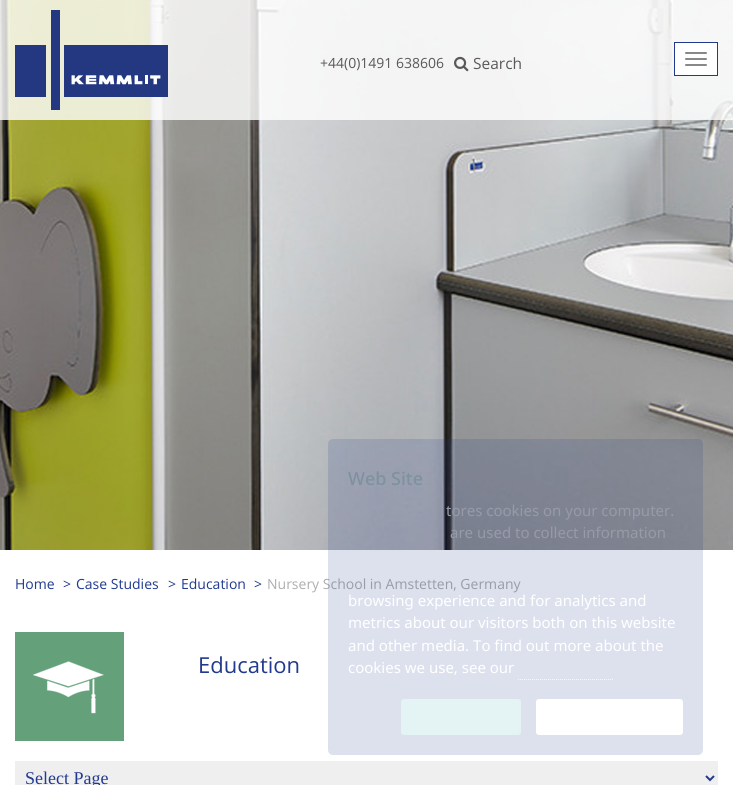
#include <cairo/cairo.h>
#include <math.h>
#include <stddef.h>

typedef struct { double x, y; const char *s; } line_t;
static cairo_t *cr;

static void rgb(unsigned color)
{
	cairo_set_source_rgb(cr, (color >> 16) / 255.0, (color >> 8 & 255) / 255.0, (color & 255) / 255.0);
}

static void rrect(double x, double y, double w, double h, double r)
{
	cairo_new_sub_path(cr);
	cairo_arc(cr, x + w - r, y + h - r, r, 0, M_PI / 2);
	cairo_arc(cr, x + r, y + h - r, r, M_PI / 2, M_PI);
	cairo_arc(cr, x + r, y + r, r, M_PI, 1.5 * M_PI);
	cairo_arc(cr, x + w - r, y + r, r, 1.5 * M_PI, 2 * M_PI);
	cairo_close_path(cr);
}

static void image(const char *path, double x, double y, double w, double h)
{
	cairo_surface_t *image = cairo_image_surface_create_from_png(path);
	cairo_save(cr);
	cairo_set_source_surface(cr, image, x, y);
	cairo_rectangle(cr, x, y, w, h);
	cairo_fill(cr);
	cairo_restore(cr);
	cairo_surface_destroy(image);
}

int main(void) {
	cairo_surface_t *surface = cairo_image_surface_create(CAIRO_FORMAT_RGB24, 733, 785);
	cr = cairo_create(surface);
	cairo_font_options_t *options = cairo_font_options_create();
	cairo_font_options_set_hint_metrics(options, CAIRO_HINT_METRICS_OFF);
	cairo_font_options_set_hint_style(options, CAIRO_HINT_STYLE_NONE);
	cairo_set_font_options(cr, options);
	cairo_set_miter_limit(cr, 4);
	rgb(0xffffff);
	cairo_paint(cr);
	image("img/1.png", 0, 0, 733, 550);
	cairo_set_source_rgba(cr, 1, 1, 1, 0.8);
	cairo_rectangle(cr, 0, 0, 733, 120);
	cairo_fill(cr);
	image("img/2.png", 15, 10, 153, 100);
	image("img/3.png", 454, 56, 15, 16);
	rgb(0xffffff);
	cairo_rectangle(cr, 674.5, 42.5, 43, 33);
	cairo_fill_preserve(cr);
	rgb(0x213a8f);
	cairo_set_line_width(cr, 1);
	cairo_stroke(cr);
	rgb(0x888888);
	rrect(685, 52, 22, 2, 1);
	cairo_fill(cr);
	rrect(685, 58, 22, 2, 1);
	cairo_fill(cr);
	rrect(685, 64, 22, 2, 1);
	cairo_fill(cr);
	image("img/4.png", 15, 632, 109, 109);
	rgb(0xefefef);
	cairo_rectangle(cr, 15, 761, 703, 24);
	cairo_fill(cr);
	cairo_new_path(cr);
	cairo_move_to(cr, 706, 776);
	cairo_line_to(cr, 710, 780);
	cairo_line_to(cr, 714, 776);
	rgb(0x213a8f);
	cairo_set_line_width(cr, 2);
	cairo_stroke(cr);
	cairo_select_font_face(cr, "Open Sans", CAIRO_FONT_SLANT_NORMAL, CAIRO_FONT_WEIGHT_NORMAL);
	cairo_set_font_size(cr, 14);
	rgb(0x5a5959);
	cairo_move_to(cr, 320, 68);
	cairo_show_text(cr, "+44(0)1491 638606");
	cairo_set_font_size(cr, 15.5);
	cairo_move_to(cr, 473, 69);
	cairo_show_text(cr, "Search");
	cairo_set_font_size(cr, 14);
	rgb(0x213a8f);
	{
		static const line_t items[] = {
			{15, 589, "Home"},
			{63, 589, ">"},
			{76, 589, "Case Studies"},
			{168, 589, ">"},
			{181, 589, "Education"},
			{254, 589, ">"},
		};
		for (size_t i = 0; i < sizeof items / sizeof *items; i++) {
			cairo_move_to(cr, items[i].x, items[i].y);
			cairo_show_text(cr, items[i].s);
		}
	}
	rgb(0xaeaeae);
	cairo_move_to(cr, 267, 589);
	cairo_show_text(cr, "Nursery School in Amstetten, Germany");
	cairo_set_source_rgba(cr, 0.129, 0.227, 0.561, 0.15);
	rrect(328, 439, 375, 316, 5);
	cairo_fill(cr);
	rgb(0xffffff);
	rrect(536, 699, 147, 36, 3);
	cairo_fill(cr);
	rgb(0xe4f4f4);
	rrect(401, 699, 120, 36, 3);
	cairo_fill(cr);
	cairo_new_path(cr);
	cairo_move_to(cr, 518, 679.5);
	cairo_line_to(cr, 613, 679.5);
	rgb(0xf7f8fb);
	cairo_set_line_width(cr, 1);
	cairo_set_dash(cr, (double[]){1, 1}, 2, 0);
	cairo_stroke(cr);
	cairo_select_font_face(cr, "Noto Sans", CAIRO_FONT_SLANT_NORMAL, CAIRO_FONT_WEIGHT_NORMAL);
	cairo_set_font_size(cr, 15);
	rgb(0xffffff);
	{
		static const line_t items[] = {
			{348, 673, "cookies we use, see our"},
			{348, 651, "and other media. To find out more about the"},
			{348, 628, "metrics about our visitors both on this website"},
			{348, 606, "browsing experience and for analytics and"},
		};
		for (size_t i = 0; i < sizeof items / sizeof *items; i++) {
			cairo_move_to(cr, items[i].x, items[i].y);
			cairo_show_text(cr, items[i].s);
		}
	}
	rgb(0x979aa7);
	cairo_move_to(cr, 450, 538);
	cairo_show_text(cr, "are used to collect information");
	cairo_move_to(cr, 446, 516);
	cairo_show_text(cr, "tores cookies on your computer.");
	cairo_select_font_face(cr, "Noto Sans Medium", CAIRO_FONT_SLANT_NORMAL, CAIRO_FONT_WEIGHT_NORMAL);
	cairo_set_font_size(cr, 18);
	rgb(0x7d919e);
	cairo_move_to(cr, 348, 485);
	cairo_show_text(cr, "Web Site");
	cairo_select_font_face(cr, "Open Sans", CAIRO_FONT_SLANT_NORMAL, CAIRO_FONT_WEIGHT_NORMAL);
	cairo_set_font_size(cr, 22);
	rgb(0x213a8f);
	cairo_move_to(cr, 198, 673);
	cairo_show_text(cr, "Education");
	cairo_select_font_face(cr, "Liberation Serif", CAIRO_FONT_SLANT_NORMAL, CAIRO_FONT_WEIGHT_NORMAL);
	cairo_set_font_size(cr, 18);
	cairo_move_to(cr, 25, 784);
	cairo_show_text(cr, "Select Page");
	cairo_surface_write_to_png(surface, "page.png");
	cairo_font_options_destroy(options);
	cairo_destroy(cr);
	cairo_surface_destroy(surface);
	return 0;
}
